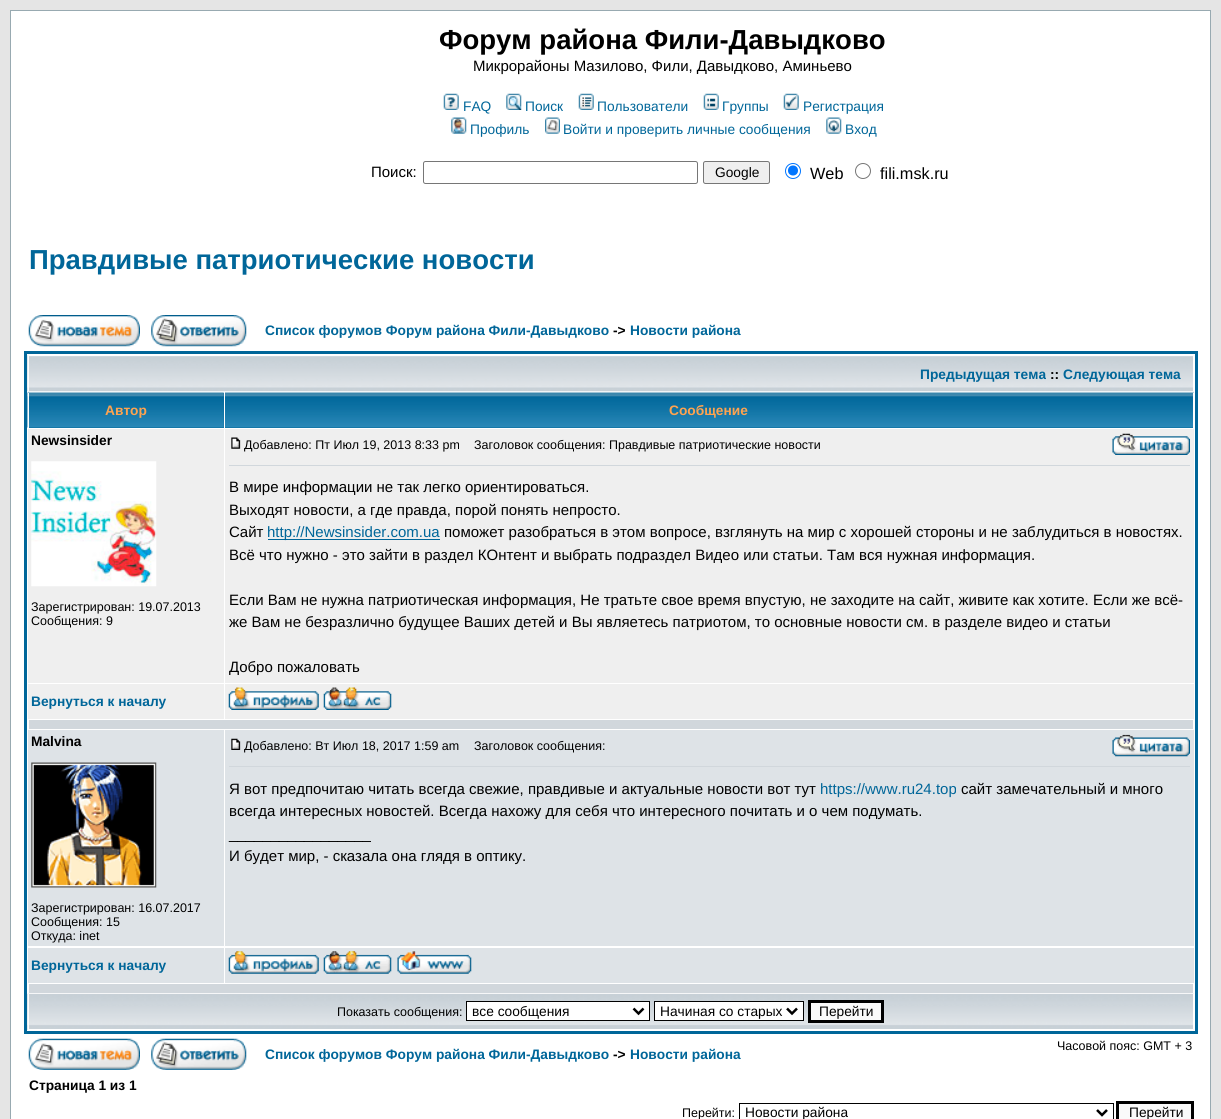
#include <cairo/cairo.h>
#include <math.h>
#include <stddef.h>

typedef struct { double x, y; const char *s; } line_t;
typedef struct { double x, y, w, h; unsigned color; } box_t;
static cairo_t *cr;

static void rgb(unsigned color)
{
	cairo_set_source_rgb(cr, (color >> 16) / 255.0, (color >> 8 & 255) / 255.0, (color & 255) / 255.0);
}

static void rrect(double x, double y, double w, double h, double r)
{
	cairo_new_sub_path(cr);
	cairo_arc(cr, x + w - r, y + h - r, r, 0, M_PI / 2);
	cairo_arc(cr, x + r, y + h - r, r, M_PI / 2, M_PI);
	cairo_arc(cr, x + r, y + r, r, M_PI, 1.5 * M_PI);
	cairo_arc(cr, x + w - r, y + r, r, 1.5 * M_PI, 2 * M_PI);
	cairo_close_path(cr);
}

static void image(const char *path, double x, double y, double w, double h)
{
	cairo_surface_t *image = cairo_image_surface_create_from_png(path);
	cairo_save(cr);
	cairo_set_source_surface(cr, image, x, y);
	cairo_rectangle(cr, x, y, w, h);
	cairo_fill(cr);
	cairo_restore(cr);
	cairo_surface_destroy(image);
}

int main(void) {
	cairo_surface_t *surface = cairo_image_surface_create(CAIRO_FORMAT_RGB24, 1221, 1119);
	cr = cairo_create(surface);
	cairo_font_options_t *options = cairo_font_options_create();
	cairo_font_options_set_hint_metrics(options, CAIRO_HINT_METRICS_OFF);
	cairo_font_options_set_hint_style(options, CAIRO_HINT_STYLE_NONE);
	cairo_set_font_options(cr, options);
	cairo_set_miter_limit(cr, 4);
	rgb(0xe5e5e5);
	cairo_paint(cr);
	rgb(0xffffff);
	cairo_rectangle(cr, 10.5, 10.5, 1200, 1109);
	cairo_fill_preserve(cr);
	rgb(0x98aab1);
	cairo_set_line_width(cr, 1);
	cairo_stroke(cr);
	image("img/1.png", 443, 93, 16, 17);
	image("img/2.png", 506, 93, 16, 17);
	image("img/3.png", 578, 93, 16, 17);
	image("img/4.png", 703, 93, 16, 17);
	image("img/5.png", 783, 93, 16, 17);
	image("img/6.png", 451, 117, 16, 17);
	image("img/7.png", 545, 117, 15, 17);
	image("img/8.png", 826, 117, 16, 17);
	rrect(423.5, 161.5, 274, 22, 2);
	rgb(0x767676);
	cairo_stroke(cr);
	rgb(0xefefef);
	rrect(703.5, 161.5, 66, 22, 2);
	cairo_fill_preserve(cr);
	rgb(0x767676);
	cairo_stroke(cr);
	cairo_arc(cr, 793, 171, 7.5, 0, 2 * M_PI);
	rgb(0x0075ff);
	cairo_stroke(cr);
	cairo_arc(cr, 793, 170.5, 5, 0, 2 * M_PI);
	cairo_fill(cr);
	cairo_arc(cr, 863, 171, 7.5, 0, 2 * M_PI);
	rgb(0x767676);
	cairo_stroke(cr);
	image("img/9.png", 28, 315, 112, 32);
	image("img/10.png", 151, 315, 96, 32);
	cairo_rectangle(cr, 25.5, 352.5, 1171, 680);
	rgb(0x006699);
	cairo_set_line_width(cr, 3);
	cairo_stroke(cr);
	image("img/11.png", 27, 355, 1167, 37);
	{
		static const box_t items[] = {
			{28, 355, 1166, 1, 0xffffff},
			{1193, 355, 1, 36, 0xffffff},
			{28, 355, 1, 36, 0xffffff},
			{29, 393, 195, 35, 0x006699},
		};
		for (size_t i = 0; i < sizeof items / sizeof *items; i++) {
			rgb(items[i].color);
			cairo_rectangle(cr, items[i].x, items[i].y, items[i].w, items[i].h);
			cairo_fill(cr);
		}
	}
	image("img/12.png", 27, 392, 197, 36);
	rgb(0xffffff);
	cairo_rectangle(cr, 28, 393, 1, 35);
	cairo_fill(cr);
	rgb(0x006699);
	cairo_rectangle(cr, 225, 427, 968, 1);
	cairo_fill(cr);
	image("img/13.png", 225, 392, 969, 36);
	rgb(0xffffff);
	cairo_rectangle(cr, 1193, 393, 1, 35);
	cairo_fill(cr);
	rgb(0xefefef);
	cairo_rectangle(cr, 28, 429, 196, 254);
	cairo_fill(cr);
	image("img/14.png", 31, 461, 126, 126);
	cairo_rectangle(cr, 225, 429, 969, 254);
	cairo_fill(cr);
	image("img/15.png", 231, 437, 10, 12);
	image("img/16.png", 1112, 433, 78, 22);
	{
		static const box_t items[] = {
			{229, 465, 961, 1, 0xd1d7dc},
			{268, 539, 172, 1, 0x006699},
			{28, 684, 196, 35, 0xefefef},
			{225, 684, 969, 35, 0xefefef},
		};
		for (size_t i = 0; i < sizeof items / sizeof *items; i++) {
			rgb(items[i].color);
			cairo_rectangle(cr, items[i].x, items[i].y, items[i].w, items[i].h);
			cairo_fill(cr);
		}
	}
	image("img/17.png", 228, 687, 91, 23);
	image("img/18.png", 323, 687, 69, 23);
	rgb(0xd1d7dc);
	cairo_rectangle(cr, 29, 720, 1164, 9);
	cairo_fill(cr);
	rgb(0xdee3e7);
	cairo_rectangle(cr, 28, 730, 196, 216);
	cairo_fill(cr);
	image("img/19.png", 31, 762, 126, 126);
	cairo_rectangle(cr, 225, 730, 969, 216);
	cairo_fill(cr);
	image("img/20.png", 231, 738, 10, 12);
	image("img/21.png", 1112, 734, 78, 23);
	{
		static const box_t items[] = {
			{229, 766, 961, 1, 0xd1d7dc},
			{28, 948, 196, 35, 0xdee3e7},
			{225, 948, 969, 35, 0xdee3e7},
		};
		for (size_t i = 0; i < sizeof items / sizeof *items; i++) {
			rgb(items[i].color);
			cairo_rectangle(cr, items[i].x, items[i].y, items[i].w, items[i].h);
			cairo_fill(cr);
		}
	}
	image("img/22.png", 228, 951, 91, 23);
	image("img/23.png", 323, 951, 69, 23);
	image("img/24.png", 397, 951, 75, 23);
	rgb(0xd1d7dc);
	cairo_rectangle(cr, 29, 984, 1164, 9);
	cairo_fill(cr);
	image("img/25.png", 27, 993, 1167, 37);
	{
		static const box_t items[] = {
			{1193, 994, 1, 36, 0xffffff},
			{28, 1029, 1166, 1, 0xffffff},
			{28, 994, 1, 36, 0xffffff},
		};
		for (size_t i = 0; i < sizeof items / sizeof *items; i++) {
			rgb(items[i].color);
			cairo_rectangle(cr, items[i].x, items[i].y, items[i].w, items[i].h);
			cairo_fill(cr);
		}
	}
	cairo_rectangle(cr, 466.5, 1001.5, 183, 19);
	cairo_fill_preserve(cr);
	rgb(0x000000);
	cairo_set_line_width(cr, 1);
	cairo_stroke(cr);
	cairo_new_path(cr);
	cairo_move_to(cr, 633.5, 1008.5);
	cairo_line_to(cr, 638.5, 1013.5);
	cairo_line_to(cr, 643.5, 1008.5);
	cairo_set_line_width(cr, 2.5);
	cairo_stroke(cr);
	rgb(0xffffff);
	cairo_rectangle(cr, 654.5, 1001.5, 149, 19);
	cairo_fill_preserve(cr);
	rgb(0x000000);
	cairo_set_line_width(cr, 1);
	cairo_stroke(cr);
	cairo_new_path(cr);
	cairo_move_to(cr, 787, 1008.5);
	cairo_line_to(cr, 792, 1013.5);
	cairo_line_to(cr, 797, 1008.5);
	cairo_set_line_width(cr, 2.5);
	cairo_stroke(cr);
	rgb(0xfafafa);
	cairo_rectangle(cr, 809.5, 1001.5, 73, 20);
	cairo_fill_preserve(cr);
	rgb(0x000000);
	cairo_set_line_width(cr, 3);
	cairo_stroke(cr);
	image("img/26.png", 28, 1038, 112, 32);
	image("img/27.png", 151, 1038, 96, 32);
	cairo_rectangle(cr, 739.5, 1103.5, 374, 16);
	cairo_set_line_width(cr, 1);
	cairo_stroke(cr);
	cairo_new_path(cr);
	cairo_move_to(cr, 1097, 1110);
	cairo_line_to(cr, 1102, 1115);
	cairo_line_to(cr, 1107, 1110);
	cairo_set_line_width(cr, 2.5);
	cairo_stroke(cr);
	rgb(0xfafafa);
	cairo_rectangle(cr, 1117.5, 1102.5, 75, 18);
	cairo_fill_preserve(cr);
	rgb(0x000000);
	cairo_set_line_width(cr, 3);
	cairo_stroke(cr);
	cairo_select_font_face(cr, "Liberation Sans", CAIRO_FONT_SLANT_NORMAL, CAIRO_FONT_WEIGHT_BOLD);
	cairo_set_font_size(cr, 27.5);
	cairo_move_to(cr, 439, 49);
	cairo_show_text(cr, "Форум района Фили-Давыдково");
	cairo_select_font_face(cr, "Liberation Sans", CAIRO_FONT_SLANT_NORMAL, CAIRO_FONT_WEIGHT_NORMAL);
	cairo_set_font_size(cr, 15);
	cairo_move_to(cr, 473, 71);
	cairo_show_text(cr, "Микрорайоны Мазилово, Фили, Давыдково, Аминьево");
	cairo_set_font_size(cr, 13.75);
	rgb(0x006699);
	{
		static const line_t items[] = {
			{463, 111, "FAQ"},
			{525, 111, "Поиск"},
			{597, 111, "Пользователи"},
			{722, 111, "Группы"},
			{803, 111, "Регистрация"},
			{470, 134, "Профиль"},
			{563, 134, "Войти и проверить личные сообщения"},
			{845, 134, "Вход"},
		};
		for (size_t i = 0; i < sizeof items / sizeof *items; i++) {
			cairo_move_to(cr, items[i].x, items[i].y);
			cairo_show_text(cr, items[i].s);
		}
	}
	cairo_set_font_size(cr, 15);
	rgb(0x000000);
	cairo_move_to(cr, 371, 177);
	cairo_show_text(cr, "Поиск:");
	cairo_set_font_size(cr, 13.75);
	cairo_move_to(cr, 715, 177);
	cairo_show_text(cr, "Google");
	cairo_set_font_size(cr, 16.25);
	cairo_move_to(cr, 810, 179);
	cairo_show_text(cr, "Web");
	cairo_move_to(cr, 880, 179);
	cairo_show_text(cr, "fili.msk.ru");
	cairo_select_font_face(cr, "Liberation Sans", CAIRO_FONT_SLANT_NORMAL, CAIRO_FONT_WEIGHT_BOLD);
	cairo_set_font_size(cr, 27.5);
	rgb(0x006699);
	cairo_move_to(cr, 29, 269);
	cairo_show_text(cr, "Правдивые патриотические новости");
	cairo_set_font_size(cr, 13.75);
	cairo_move_to(cr, 265, 335);
	cairo_show_text(cr, "Список форумов Форум района Фили-Давыдково");
	rgb(0x000000);
	cairo_move_to(cr, 613, 335);
	cairo_show_text(cr, "->");
	rgb(0x006699);
	cairo_move_to(cr, 630, 335);
	cairo_show_text(cr, "Новости района");
	cairo_move_to(cr, 920, 379);
	cairo_show_text(cr, "Предыдущая тема");
	rgb(0x000000);
	cairo_move_to(cr, 1050, 379);
	cairo_show_text(cr, "::");
	rgb(0x006699);
	cairo_move_to(cr, 1063, 379);
	cairo_show_text(cr, "Следующая тема");
	rgb(0xffa34f);
	cairo_move_to(cr, 105, 415);
	cairo_show_text(cr, "Автор");
	cairo_move_to(cr, 669, 415);
	cairo_show_text(cr, "Сообщение");
	rgb(0x000000);
	cairo_move_to(cr, 31, 445);
	cairo_show_text(cr, "Newsinsider");
	cairo_select_font_face(cr, "Liberation Sans", CAIRO_FONT_SLANT_NORMAL, CAIRO_FONT_WEIGHT_NORMAL);
	cairo_set_font_size(cr, 12.5);
	{
		static const line_t items[] = {
			{31, 611, "Зарегистрирован: 19.07.2013"},
			{31, 625, "Сообщения: 9"},
			{244, 449, "Добавлено: Пт Июл 19, 2013 8:33 pm"},
			{474, 449, "Заголовок сообщения: Правдивые патриотические новости"},
		};
		for (size_t i = 0; i < sizeof items / sizeof *items; i++) {
			cairo_move_to(cr, items[i].x, items[i].y);
			cairo_show_text(cr, items[i].s);
		}
	}
	cairo_set_font_size(cr, 15);
	{
		static const line_t items[] = {
			{229, 492, "В мире информации не так легко ориентироваться."},
			{229, 515, "Выходят новости, а где правда, порой понять непросто."},
			{229, 537, "Сайт"},
		};
		for (size_t i = 0; i < sizeof items / sizeof *items; i++) {
			cairo_move_to(cr, items[i].x, items[i].y);
			cairo_show_text(cr, items[i].s);
		}
	}
	rgb(0x006699);
	cairo_move_to(cr, 267, 537);
	cairo_show_text(cr, "http://Newsinsider.com.ua");
	rgb(0x000000);
	{
		static const line_t items[] = {
			{444, 537, "поможет разобраться в этом вопросе, взглянуть на мир с хорошей стороны и не заблудиться в новостях."},
			{229, 560, "Всё что нужно - это зайти в раздел КОнтент и выбрать подраздел Видео или статьи. Там вся нужная информация."},
			{229, 605, "Если Вам не нужна патриотическая информация, Не тратьте свое время впустую, не заходите на сайт, живите как хотите. Если же всё-"},
			{229, 627, "же Вам не безразлично будущее Ваших детей и Вы являетесь патриотом, то основные новости см. в разделе видео и статьи"},
			{229, 672, "Добро пожаловать"},
		};
		for (size_t i = 0; i < sizeof items / sizeof *items; i++) {
			cairo_move_to(cr, items[i].x, items[i].y);
			cairo_show_text(cr, items[i].s);
		}
	}
	cairo_select_font_face(cr, "Liberation Sans", CAIRO_FONT_SLANT_NORMAL, CAIRO_FONT_WEIGHT_BOLD);
	cairo_set_font_size(cr, 13.75);
	rgb(0x006699);
	cairo_move_to(cr, 31, 706);
	cairo_show_text(cr, "Вернуться к началу");
	rgb(0x000000);
	cairo_move_to(cr, 31, 746);
	cairo_show_text(cr, "Malvina");
	cairo_select_font_face(cr, "Liberation Sans", CAIRO_FONT_SLANT_NORMAL, CAIRO_FONT_WEIGHT_NORMAL);
	cairo_set_font_size(cr, 12.5);
	{
		static const line_t items[] = {
			{31, 912, "Зарегистрирован: 16.07.2017"},
			{31, 926, "Сообщения: 15"},
			{31, 940, "Откуда: inet"},
			{244, 750, "Добавлено: Вт Июл 18, 2017 1:59 am"},
			{474, 750, "Заголовок сообщения:"},
		};
		for (size_t i = 0; i < sizeof items / sizeof *items; i++) {
			cairo_move_to(cr, items[i].x, items[i].y);
			cairo_show_text(cr, items[i].s);
		}
	}
	cairo_set_font_size(cr, 15);
	cairo_move_to(cr, 229, 794);
	cairo_show_text(cr, "Я вот предпочитаю читать всегда свежие, правдивые и актуальные новости вот тут");
	rgb(0x006699);
	cairo_move_to(cr, 820, 794);
	cairo_show_text(cr, "https://www.ru24.top");
	rgb(0x000000);
	{
		static const line_t items[] = {
			{961, 794, "сайт замечательный и много"},
			{229, 816, "всегда интересных новостей. Всегда нахожу для себя что интересного почитать и о чем подумать."},
			{229, 839, "_________________"},
			{229, 861, "И будет мир, - сказала она глядя в оптику."},
		};
		for (size_t i = 0; i < sizeof items / sizeof *items; i++) {
			cairo_move_to(cr, items[i].x, items[i].y);
			cairo_show_text(cr, items[i].s);
		}
	}
	cairo_select_font_face(cr, "Liberation Sans", CAIRO_FONT_SLANT_NORMAL, CAIRO_FONT_WEIGHT_BOLD);
	cairo_set_font_size(cr, 13.75);
	rgb(0x006699);
	cairo_move_to(cr, 31, 970);
	cairo_show_text(cr, "Вернуться к началу");
	cairo_select_font_face(cr, "Liberation Sans", CAIRO_FONT_SLANT_NORMAL, CAIRO_FONT_WEIGHT_NORMAL);
	cairo_set_font_size(cr, 12.5);
	rgb(0x000000);
	cairo_move_to(cr, 337, 1016);
	cairo_show_text(cr, "Показать сообщения:");
	cairo_set_font_size(cr, 13.75);
	{
		static const line_t items[] = {
			{472, 1016, "все сообщения"},
			{660, 1016, "Начиная со старых"},
			{819, 1016, "Перейти"},
		};
		for (size_t i = 0; i < sizeof items / sizeof *items; i++) {
			cairo_move_to(cr, items[i].x, items[i].y);
			cairo_show_text(cr, items[i].s);
		}
	}
	cairo_set_font_size(cr, 12.5);
	cairo_move_to(cr, 1057, 1050);
	cairo_show_text(cr, "Часовой пояс: GMT + 3");
	cairo_select_font_face(cr, "Liberation Sans", CAIRO_FONT_SLANT_NORMAL, CAIRO_FONT_WEIGHT_BOLD);
	cairo_set_font_size(cr, 13.75);
	rgb(0x006699);
	cairo_move_to(cr, 265, 1059);
	cairo_show_text(cr, "Список форумов Форум района Фили-Давыдково");
	rgb(0x000000);
	cairo_move_to(cr, 613, 1059);
	cairo_show_text(cr, "->");
	rgb(0x006699);
	cairo_move_to(cr, 630, 1059);
	cairo_show_text(cr, "Новости района");
	rgb(0x000000);
	cairo_move_to(cr, 29, 1090);
	cairo_show_text(cr, "Страница 1 из 1");
	cairo_select_font_face(cr, "Liberation Sans", CAIRO_FONT_SLANT_NORMAL, CAIRO_FONT_WEIGHT_NORMAL);
	cairo_set_font_size(cr, 12.5);
	cairo_move_to(cr, 682, 1117);
	cairo_show_text(cr, "Перейти:");
	cairo_set_font_size(cr, 13.75);
	cairo_move_to(cr, 745, 1117);
	cairo_show_text(cr, "Новости района");
	cairo_move_to(cr, 1129, 1117);
	cairo_show_text(cr, "Перейти");
	cairo_surface_write_to_png(surface, "page.png");
	cairo_font_options_destroy(options);
	cairo_destroy(cr);
	cairo_surface_destroy(surface);
	return 0;
}
